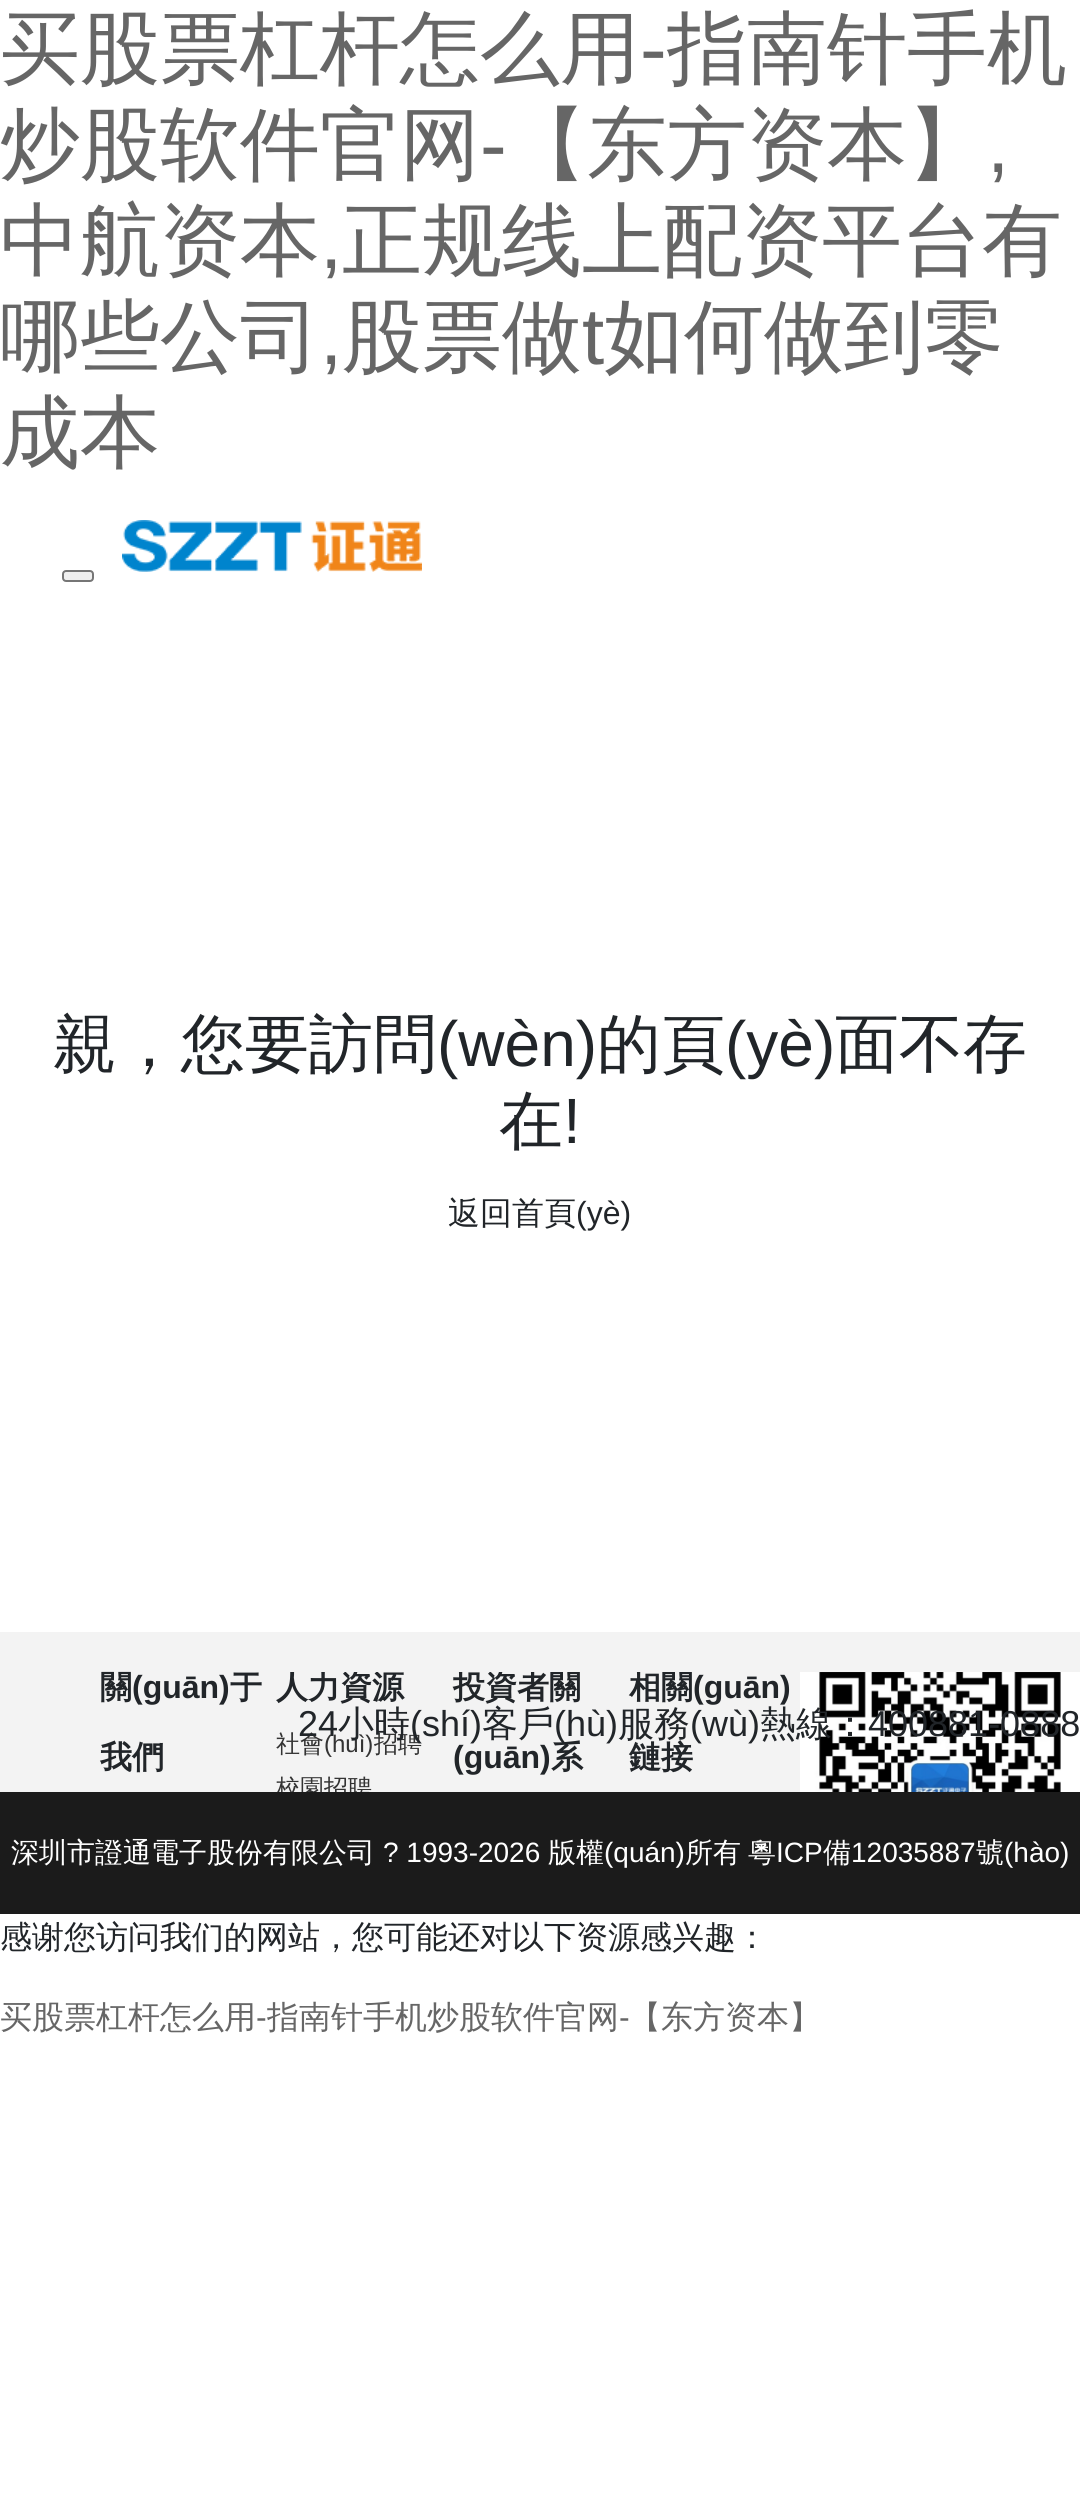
#include <cairo/cairo.h>
#include <math.h>
#include <stddef.h>

static cairo_t *cr;

static void rgb(unsigned color)
{
	cairo_set_source_rgb(cr, (color >> 16) / 255.0, (color >> 8 & 255) / 255.0, (color & 255) / 255.0);
}

static void rrect(double x, double y, double w, double h, double r)
{
	cairo_new_sub_path(cr);
	cairo_arc(cr, x + w - r, y + h - r, r, 0, M_PI / 2);
	cairo_arc(cr, x + r, y + h - r, r, M_PI / 2, M_PI);
	cairo_arc(cr, x + r, y + r, r, M_PI, 1.5 * M_PI);
	cairo_arc(cr, x + w - r, y + r, r, 1.5 * M_PI, 2 * M_PI);
	cairo_close_path(cr);
}

static void image(const char *path, double x, double y, double w, double h)
{
	cairo_surface_t *image = cairo_image_surface_create_from_png(path);
	cairo_save(cr);
	cairo_set_source_surface(cr, image, x, y);
	cairo_rectangle(cr, x, y, w, h);
	cairo_fill(cr);
	cairo_restore(cr);
	cairo_surface_destroy(image);
}

int main(void) {
	cairo_surface_t *surface = cairo_image_surface_create(CAIRO_FORMAT_RGB24, 1080, 2500);
	cr = cairo_create(surface);
	cairo_font_options_t *options = cairo_font_options_create();
	cairo_font_options_set_hint_metrics(options, CAIRO_HINT_METRICS_OFF);
	cairo_font_options_set_hint_style(options, CAIRO_HINT_STYLE_NONE);
	cairo_set_font_options(cr, options);
	cairo_set_miter_limit(cr, 4);
	rgb(0xffffff);
	cairo_paint(cr);
	image("img/1.png", 122, 520, 300, 52);
	rgb(0xefefef);
	rrect(63, 571, 30, 10, 3);
	cairo_fill_preserve(cr);
	rgb(0x767676);
	cairo_stroke(cr);
	rgb(0xf3f3f3);
	cairo_rectangle(cr, 0, 1632, 1080, 160);
	cairo_fill(cr);
	image("img/2.png", 800, 1672, 280, 120);
	rgb(0x1b1b1b);
	cairo_rectangle(cr, 0, 1792, 1080, 122);
	cairo_fill(cr);
	cairo_select_font_face(cr, "WenQuanYi Zen Hei Medium", CAIRO_FONT_SLANT_NORMAL, CAIRO_FONT_WEIGHT_NORMAL);
	cairo_set_font_size(cr, 80);
	rgb(0x666666);
	cairo_move_to(cr, 0, 76);
	cairo_show_text(cr, "买股票杠杆怎么用");
	cairo_select_font_face(cr, "Liberation Sans", CAIRO_FONT_SLANT_NORMAL, CAIRO_FONT_WEIGHT_NORMAL);
	cairo_move_to(cr, 640, 76);
	cairo_show_text(cr, "-");
	cairo_select_font_face(cr, "WenQuanYi Zen Hei Medium", CAIRO_FONT_SLANT_NORMAL, CAIRO_FONT_WEIGHT_NORMAL);
	cairo_move_to(cr, 667, 76);
	cairo_show_text(cr, "指南针手机");
	cairo_move_to(cr, 0, 172);
	cairo_show_text(cr, "炒股软件官网");
	cairo_select_font_face(cr, "Liberation Sans", CAIRO_FONT_SLANT_NORMAL, CAIRO_FONT_WEIGHT_NORMAL);
	cairo_move_to(cr, 480, 172);
	cairo_show_text(cr, "-");
	cairo_select_font_face(cr, "WenQuanYi Zen Hei Medium", CAIRO_FONT_SLANT_NORMAL, CAIRO_FONT_WEIGHT_NORMAL);
	cairo_move_to(cr, 507, 172);
	cairo_show_text(cr, "【东方资本】");
	cairo_select_font_face(cr, "Liberation Sans", CAIRO_FONT_SLANT_NORMAL, CAIRO_FONT_WEIGHT_NORMAL);
	cairo_move_to(cr, 987, 172);
	cairo_show_text(cr, ",");
	cairo_select_font_face(cr, "WenQuanYi Zen Hei Medium", CAIRO_FONT_SLANT_NORMAL, CAIRO_FONT_WEIGHT_NORMAL);
	cairo_move_to(cr, 0, 268);
	cairo_show_text(cr, "中航资本");
	cairo_select_font_face(cr, "Liberation Sans", CAIRO_FONT_SLANT_NORMAL, CAIRO_FONT_WEIGHT_NORMAL);
	cairo_move_to(cr, 320, 268);
	cairo_show_text(cr, ",");
	cairo_select_font_face(cr, "WenQuanYi Zen Hei Medium", CAIRO_FONT_SLANT_NORMAL, CAIRO_FONT_WEIGHT_NORMAL);
	cairo_move_to(cr, 342, 268);
	cairo_show_text(cr, "正规线上配资平台有");
	cairo_move_to(cr, 0, 364);
	cairo_show_text(cr, "哪些公司");
	cairo_select_font_face(cr, "Liberation Sans", CAIRO_FONT_SLANT_NORMAL, CAIRO_FONT_WEIGHT_NORMAL);
	cairo_move_to(cr, 320, 364);
	cairo_show_text(cr, ",");
	cairo_select_font_face(cr, "WenQuanYi Zen Hei Medium", CAIRO_FONT_SLANT_NORMAL, CAIRO_FONT_WEIGHT_NORMAL);
	cairo_move_to(cr, 342, 364);
	cairo_show_text(cr, "股票做");
	cairo_select_font_face(cr, "Liberation Sans", CAIRO_FONT_SLANT_NORMAL, CAIRO_FONT_WEIGHT_NORMAL);
	cairo_move_to(cr, 582, 364);
	cairo_show_text(cr, "t");
	cairo_select_font_face(cr, "WenQuanYi Zen Hei Medium", CAIRO_FONT_SLANT_NORMAL, CAIRO_FONT_WEIGHT_NORMAL);
	cairo_move_to(cr, 604, 364);
	cairo_show_text(cr, "如何做到零");
	cairo_move_to(cr, 0, 460);
	cairo_show_text(cr, "成本");
	cairo_set_font_size(cr, 64);
	rgb(0x212529);
	cairo_move_to(cr, 53, 1066);
	cairo_show_text(cr, "親，您要訪問");
	cairo_select_font_face(cr, "Liberation Sans", CAIRO_FONT_SLANT_NORMAL, CAIRO_FONT_WEIGHT_NORMAL);
	cairo_move_to(cr, 437, 1066);
	cairo_show_text(cr, "(wèn)");
	cairo_select_font_face(cr, "WenQuanYi Zen Hei Medium", CAIRO_FONT_SLANT_NORMAL, CAIRO_FONT_WEIGHT_NORMAL);
	cairo_move_to(cr, 597, 1066);
	cairo_show_text(cr, "的頁");
	cairo_select_font_face(cr, "Liberation Sans", CAIRO_FONT_SLANT_NORMAL, CAIRO_FONT_WEIGHT_NORMAL);
	cairo_move_to(cr, 725, 1066);
	cairo_show_text(cr, "(yè)");
	cairo_select_font_face(cr, "WenQuanYi Zen Hei Medium", CAIRO_FONT_SLANT_NORMAL, CAIRO_FONT_WEIGHT_NORMAL);
	cairo_move_to(cr, 835, 1066);
	cairo_show_text(cr, "面不存");
	cairo_move_to(cr, 499, 1143);
	cairo_show_text(cr, "在");
	cairo_select_font_face(cr, "Liberation Sans", CAIRO_FONT_SLANT_NORMAL, CAIRO_FONT_WEIGHT_NORMAL);
	cairo_move_to(cr, 563, 1143);
	cairo_show_text(cr, "!");
	cairo_select_font_face(cr, "WenQuanYi Zen Hei Medium", CAIRO_FONT_SLANT_NORMAL, CAIRO_FONT_WEIGHT_NORMAL);
	cairo_set_font_size(cr, 32);
	cairo_move_to(cr, 448, 1224);
	cairo_show_text(cr, "返回首頁");
	cairo_select_font_face(cr, "Liberation Sans", CAIRO_FONT_SLANT_NORMAL, CAIRO_FONT_WEIGHT_NORMAL);
	cairo_move_to(cr, 576, 1224);
	cairo_show_text(cr, "(yè)");
	cairo_select_font_face(cr, "WenQuanYi Zen Hei", CAIRO_FONT_SLANT_NORMAL, CAIRO_FONT_WEIGHT_BOLD);
	cairo_move_to(cr, 100, 1698);
	cairo_show_text(cr, "關");
	cairo_select_font_face(cr, "Liberation Sans", CAIRO_FONT_SLANT_NORMAL, CAIRO_FONT_WEIGHT_BOLD);
	cairo_move_to(cr, 132, 1698);
	cairo_show_text(cr, "(guān)");
	cairo_select_font_face(cr, "WenQuanYi Zen Hei", CAIRO_FONT_SLANT_NORMAL, CAIRO_FONT_WEIGHT_BOLD);
	cairo_move_to(cr, 230, 1698);
	cairo_show_text(cr, "于");
	cairo_move_to(cr, 100, 1768);
	cairo_show_text(cr, "我們");
	cairo_save(cr);
	cairo_rectangle(cr, 0, 1672, 1080, 120);
	cairo_clip(cr);
	cairo_move_to(cr, 276, 1698);
	cairo_show_text(cr, "人力資源");
	cairo_restore(cr);
	cairo_select_font_face(cr, "WenQuanYi Zen Hei Medium", CAIRO_FONT_SLANT_NORMAL, CAIRO_FONT_WEIGHT_NORMAL);
	cairo_set_font_size(cr, 24);
	rgb(0x333333);
	cairo_move_to(cr, 276, 1752);
	cairo_show_text(cr, "社會");
	cairo_select_font_face(cr, "Liberation Sans", CAIRO_FONT_SLANT_NORMAL, CAIRO_FONT_WEIGHT_NORMAL);
	cairo_move_to(cr, 324, 1752);
	cairo_show_text(cr, "(huì)");
	cairo_select_font_face(cr, "WenQuanYi Zen Hei Medium", CAIRO_FONT_SLANT_NORMAL, CAIRO_FONT_WEIGHT_NORMAL);
	cairo_move_to(cr, 374, 1752);
	cairo_show_text(cr, "招聘");
	cairo_save(cr);
	cairo_rectangle(cr, 0, 1672, 1080, 120);
	cairo_clip(cr);
	cairo_move_to(cr, 276, 1796);
	cairo_show_text(cr, "校園招聘");
	cairo_select_font_face(cr, "WenQuanYi Zen Hei", CAIRO_FONT_SLANT_NORMAL, CAIRO_FONT_WEIGHT_BOLD);
	cairo_set_font_size(cr, 32);
	rgb(0x212529);
	cairo_move_to(cr, 453, 1698);
	cairo_show_text(cr, "投資者關");
	cairo_restore(cr);
	cairo_select_font_face(cr, "Liberation Sans", CAIRO_FONT_SLANT_NORMAL, CAIRO_FONT_WEIGHT_BOLD);
	cairo_set_font_size(cr, 32);
	rgb(0x212529);
	cairo_move_to(cr, 453, 1768);
	cairo_show_text(cr, "(guān)");
	cairo_select_font_face(cr, "WenQuanYi Zen Hei", CAIRO_FONT_SLANT_NORMAL, CAIRO_FONT_WEIGHT_BOLD);
	cairo_move_to(cr, 551, 1768);
	cairo_show_text(cr, "系");
	cairo_save(cr);
	cairo_rectangle(cr, 0, 1672, 1080, 120);
	cairo_clip(cr);
	cairo_move_to(cr, 629, 1698);
	cairo_show_text(cr, "相關");
	cairo_restore(cr);
	cairo_select_font_face(cr, "Liberation Sans", CAIRO_FONT_SLANT_NORMAL, CAIRO_FONT_WEIGHT_BOLD);
	cairo_move_to(cr, 693, 1698);
	cairo_show_text(cr, "(guān)");
	cairo_select_font_face(cr, "WenQuanYi Zen Hei", CAIRO_FONT_SLANT_NORMAL, CAIRO_FONT_WEIGHT_BOLD);
	cairo_move_to(cr, 629, 1768);
	cairo_show_text(cr, "鏈接");
	cairo_select_font_face(cr, "Liberation Sans", CAIRO_FONT_SLANT_NORMAL, CAIRO_FONT_WEIGHT_NORMAL);
	cairo_set_font_size(cr, 36);
	cairo_move_to(cr, 298, 1736);
	cairo_show_text(cr, "24");
	cairo_select_font_face(cr, "WenQuanYi Zen Hei Medium", CAIRO_FONT_SLANT_NORMAL, CAIRO_FONT_WEIGHT_NORMAL);
	cairo_move_to(cr, 338, 1736);
	cairo_show_text(cr, "小時");
	cairo_select_font_face(cr, "Liberation Sans", CAIRO_FONT_SLANT_NORMAL, CAIRO_FONT_WEIGHT_NORMAL);
	cairo_move_to(cr, 410, 1736);
	cairo_show_text(cr, "(shí)");
	cairo_select_font_face(cr, "WenQuanYi Zen Hei Medium", CAIRO_FONT_SLANT_NORMAL, CAIRO_FONT_WEIGHT_NORMAL);
	cairo_move_to(cr, 482, 1736);
	cairo_show_text(cr, "客戶");
	cairo_select_font_face(cr, "Liberation Sans", CAIRO_FONT_SLANT_NORMAL, CAIRO_FONT_WEIGHT_NORMAL);
	cairo_move_to(cr, 554, 1736);
	cairo_show_text(cr, "(hù)");
	cairo_select_font_face(cr, "WenQuanYi Zen Hei Medium", CAIRO_FONT_SLANT_NORMAL, CAIRO_FONT_WEIGHT_NORMAL);
	cairo_move_to(cr, 618, 1736);
	cairo_show_text(cr, "服務");
	cairo_select_font_face(cr, "Liberation Sans", CAIRO_FONT_SLANT_NORMAL, CAIRO_FONT_WEIGHT_NORMAL);
	cairo_move_to(cr, 690, 1736);
	cairo_show_text(cr, "(wù)");
	cairo_select_font_face(cr, "WenQuanYi Zen Hei Medium", CAIRO_FONT_SLANT_NORMAL, CAIRO_FONT_WEIGHT_NORMAL);
	cairo_move_to(cr, 760, 1736);
	cairo_show_text(cr, "熱線：");
	cairo_select_font_face(cr, "Liberation Sans", CAIRO_FONT_SLANT_NORMAL, CAIRO_FONT_WEIGHT_NORMAL);
	cairo_move_to(cr, 868, 1736);
	cairo_show_text(cr, "400881-0888");
	cairo_select_font_face(cr, "WenQuanYi Zen Hei Medium", CAIRO_FONT_SLANT_NORMAL, CAIRO_FONT_WEIGHT_NORMAL);
	cairo_set_font_size(cr, 28);
	rgb(0xffffff);
	cairo_move_to(cr, 11, 1862);
	cairo_show_text(cr, "深圳市證通電子股份有限公司");
	cairo_select_font_face(cr, "Liberation Sans", CAIRO_FONT_SLANT_NORMAL, CAIRO_FONT_WEIGHT_NORMAL);
	cairo_move_to(cr, 383, 1862);
	cairo_show_text(cr, "? 1993-2026");
	cairo_select_font_face(cr, "WenQuanYi Zen Hei Medium", CAIRO_FONT_SLANT_NORMAL, CAIRO_FONT_WEIGHT_NORMAL);
	cairo_move_to(cr, 548, 1862);
	cairo_show_text(cr, "版權");
	cairo_select_font_face(cr, "Liberation Sans", CAIRO_FONT_SLANT_NORMAL, CAIRO_FONT_WEIGHT_NORMAL);
	cairo_move_to(cr, 604, 1862);
	cairo_show_text(cr, "(quán)");
	cairo_select_font_face(cr, "WenQuanYi Zen Hei Medium", CAIRO_FONT_SLANT_NORMAL, CAIRO_FONT_WEIGHT_NORMAL);
	cairo_move_to(cr, 685, 1862);
	cairo_show_text(cr, "所有");
	cairo_move_to(cr, 748, 1862);
	cairo_show_text(cr, "粵");
	cairo_select_font_face(cr, "Liberation Sans", CAIRO_FONT_SLANT_NORMAL, CAIRO_FONT_WEIGHT_NORMAL);
	cairo_move_to(cr, 776, 1862);
	cairo_show_text(cr, "ICP");
	cairo_select_font_face(cr, "WenQuanYi Zen Hei Medium", CAIRO_FONT_SLANT_NORMAL, CAIRO_FONT_WEIGHT_NORMAL);
	cairo_move_to(cr, 823, 1862);
	cairo_show_text(cr, "備");
	cairo_select_font_face(cr, "Liberation Sans", CAIRO_FONT_SLANT_NORMAL, CAIRO_FONT_WEIGHT_NORMAL);
	cairo_move_to(cr, 851, 1862);
	cairo_show_text(cr, "12035887");
	cairo_select_font_face(cr, "WenQuanYi Zen Hei Medium", CAIRO_FONT_SLANT_NORMAL, CAIRO_FONT_WEIGHT_NORMAL);
	cairo_move_to(cr, 976, 1862);
	cairo_show_text(cr, "號");
	cairo_select_font_face(cr, "Liberation Sans", CAIRO_FONT_SLANT_NORMAL, CAIRO_FONT_WEIGHT_NORMAL);
	cairo_move_to(cr, 1004, 1862);
	cairo_show_text(cr, "(hào)");
	cairo_select_font_face(cr, "WenQuanYi Zen Hei Medium", CAIRO_FONT_SLANT_NORMAL, CAIRO_FONT_WEIGHT_NORMAL);
	cairo_set_font_size(cr, 32);
	rgb(0x212529);
	cairo_move_to(cr, 0, 1948);
	cairo_show_text(cr, "感谢您访问我们的网站，您可能还对以下资源感兴趣：");
	rgb(0x666666);
	cairo_move_to(cr, 0, 2028);
	cairo_show_text(cr, "买股票杠杆怎么用");
	cairo_select_font_face(cr, "Liberation Sans", CAIRO_FONT_SLANT_NORMAL, CAIRO_FONT_WEIGHT_NORMAL);
	cairo_move_to(cr, 256, 2028);
	cairo_show_text(cr, "-");
	cairo_select_font_face(cr, "WenQuanYi Zen Hei Medium", CAIRO_FONT_SLANT_NORMAL, CAIRO_FONT_WEIGHT_NORMAL);
	cairo_move_to(cr, 267, 2028);
	cairo_show_text(cr, "指南针手机炒股软件官网");
	cairo_select_font_face(cr, "Liberation Sans", CAIRO_FONT_SLANT_NORMAL, CAIRO_FONT_WEIGHT_NORMAL);
	cairo_move_to(cr, 619, 2028);
	cairo_show_text(cr, "-");
	cairo_select_font_face(cr, "WenQuanYi Zen Hei Medium", CAIRO_FONT_SLANT_NORMAL, CAIRO_FONT_WEIGHT_NORMAL);
	cairo_move_to(cr, 629, 2028);
	cairo_show_text(cr, "【东方资本】");
	cairo_surface_write_to_png(surface, "page.png");
	cairo_font_options_destroy(options);
	cairo_destroy(cr);
	cairo_surface_destroy(surface);
	return 0;
}
